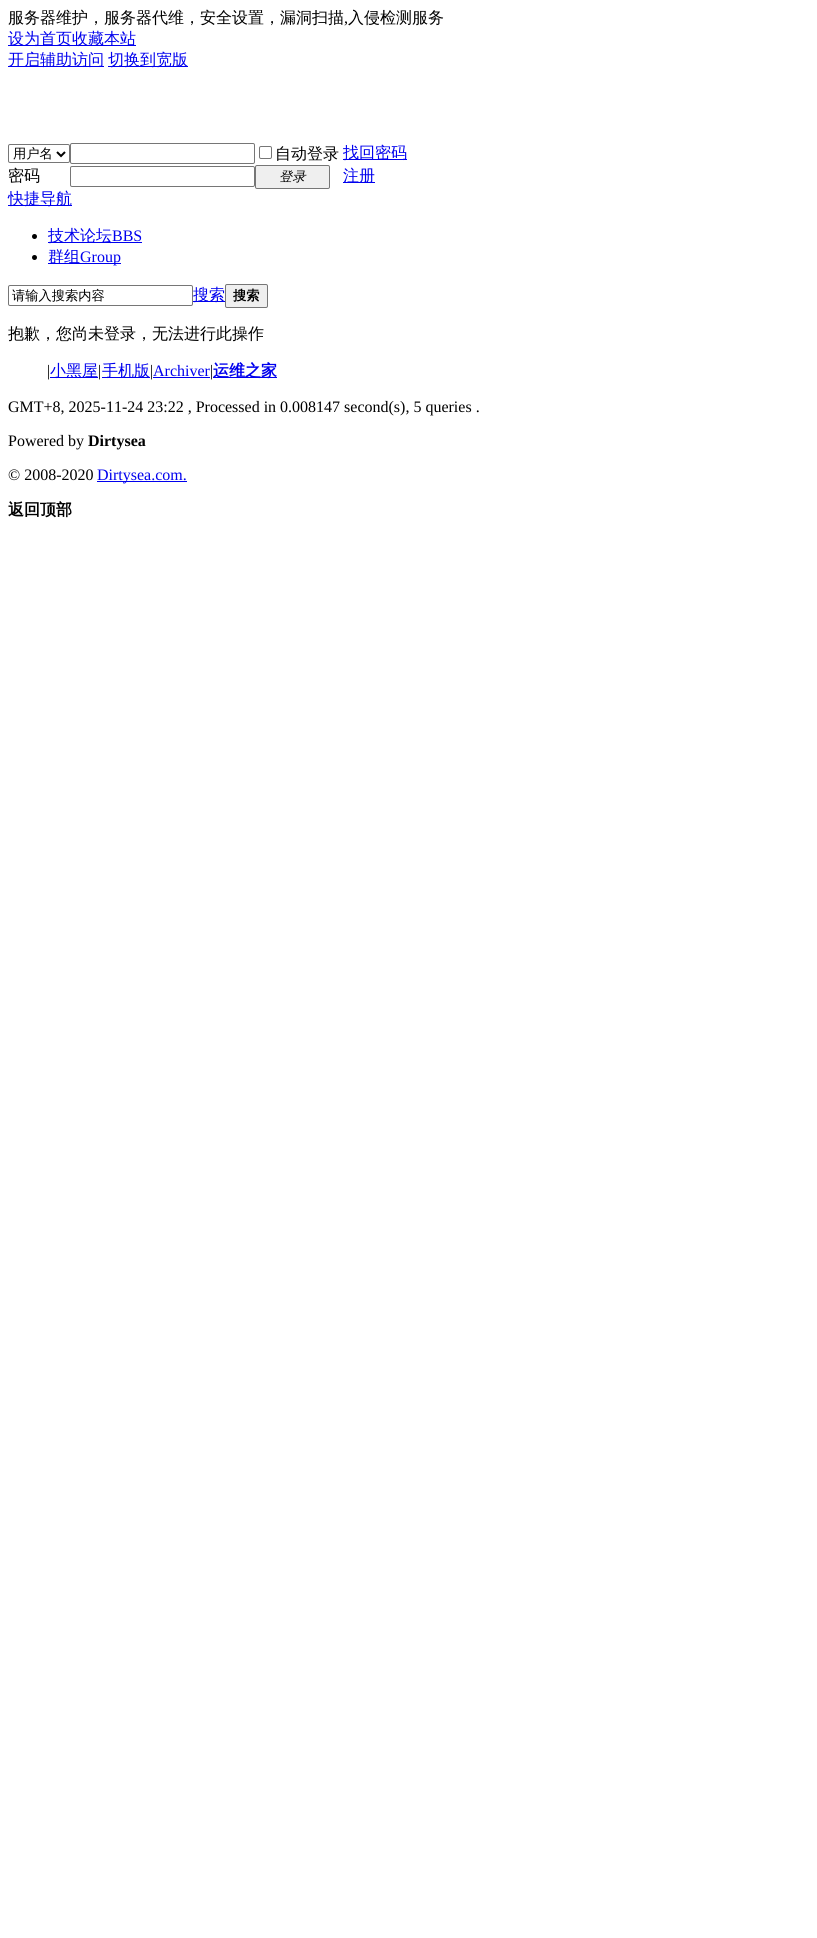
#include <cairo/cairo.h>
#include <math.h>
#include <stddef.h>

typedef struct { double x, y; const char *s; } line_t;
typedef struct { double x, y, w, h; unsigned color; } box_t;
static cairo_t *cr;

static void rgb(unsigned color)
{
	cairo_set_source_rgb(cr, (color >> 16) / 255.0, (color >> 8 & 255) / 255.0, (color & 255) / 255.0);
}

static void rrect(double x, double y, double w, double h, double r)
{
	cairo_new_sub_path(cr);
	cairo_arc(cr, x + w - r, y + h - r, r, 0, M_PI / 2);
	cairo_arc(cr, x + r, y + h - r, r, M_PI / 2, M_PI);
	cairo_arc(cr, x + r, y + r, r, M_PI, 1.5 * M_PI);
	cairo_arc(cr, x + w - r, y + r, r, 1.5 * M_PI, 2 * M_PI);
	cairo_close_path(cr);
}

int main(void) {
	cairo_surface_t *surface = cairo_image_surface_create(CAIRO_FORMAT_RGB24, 817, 1938);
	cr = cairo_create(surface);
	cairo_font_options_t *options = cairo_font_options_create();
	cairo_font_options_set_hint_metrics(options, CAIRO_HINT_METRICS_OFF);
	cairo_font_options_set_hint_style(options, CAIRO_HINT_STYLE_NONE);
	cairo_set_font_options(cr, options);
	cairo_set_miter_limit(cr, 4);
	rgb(0xffffff);
	cairo_paint(cr);
	{
		static const box_t items[] = {
			{8, 45, 128, 1, 0x0000ee},
			{8, 66, 96, 1, 0x0000ee},
			{108, 66, 80, 1, 0x0000ee},
		};
		for (size_t i = 0; i < sizeof items / sizeof *items; i++) {
			rgb(items[i].color);
			cairo_rectangle(cr, items[i].x, items[i].y, items[i].w, items[i].h);
			cairo_fill(cr);
		}
	}
	rrect(8.5, 144.5, 61, 18, 1.5);
	rgb(0x767676);
	cairo_set_line_width(cr, 1);
	cairo_stroke(cr);
	cairo_new_path(cr);
	cairo_move_to(cr, 57, 152);
	cairo_line_to(cr, 61, 156);
	cairo_line_to(cr, 65, 152);
	rgb(0x000000);
	cairo_set_line_width(cr, 2);
	cairo_stroke(cr);
	rrect(70.5, 143.5, 184, 20, 1.5);
	rgb(0x767676);
	cairo_set_line_width(cr, 1);
	cairo_stroke(cr);
	rrect(259.5, 146.5, 12, 12, 1.5);
	cairo_stroke(cr);
	rgb(0x0000ee);
	cairo_rectangle(cr, 343, 159, 64, 1);
	cairo_fill(cr);
	rrect(70.5, 166.5, 184, 20, 1.5);
	rgb(0x767676);
	cairo_stroke(cr);
	rgb(0xefefef);
	rrect(255.5, 165.5, 74, 23, 1.5);
	cairo_fill_preserve(cr);
	rgb(0x767676);
	cairo_stroke(cr);
	rgb(0x0000ee);
	cairo_rectangle(cr, 343, 182, 32, 1);
	cairo_fill(cr);
	cairo_rectangle(cr, 8, 205, 64, 1);
	cairo_fill(cr);
	rgb(0x000000);
	cairo_arc(cr, 34.5, 236.5, 2.5, 0, 2 * M_PI);
	cairo_fill(cr);
	rgb(0x0000ee);
	cairo_rectangle(cr, 48, 242, 94, 1);
	cairo_fill(cr);
	rgb(0x000000);
	cairo_arc(cr, 34.5, 257.5, 2.5, 0, 2 * M_PI);
	cairo_fill(cr);
	rgb(0x0000ee);
	cairo_rectangle(cr, 48, 263, 73, 1);
	cairo_fill(cr);
	rrect(8.5, 285.5, 184, 20, 1.5);
	rgb(0x767676);
	cairo_stroke(cr);
	rgb(0x0000ee);
	cairo_rectangle(cr, 193, 301, 32, 1);
	cairo_fill(cr);
	rgb(0xefefef);
	rrect(225.5, 284.5, 42, 23, 1.5);
	cairo_fill_preserve(cr);
	rgb(0x767676);
	cairo_stroke(cr);
	{
		static const box_t items[] = {
			{50, 377, 48, 1, 0x0000ee},
			{102, 377, 48, 1, 0x0000ee},
			{153, 377, 57, 1, 0x0000ee},
			{213, 377, 64, 1, 0x0000ee},
			{97, 481, 90, 1, 0x0000ee},
		};
		for (size_t i = 0; i < sizeof items / sizeof *items; i++) {
			rgb(items[i].color);
			cairo_rectangle(cr, items[i].x, items[i].y, items[i].w, items[i].h);
			cairo_fill(cr);
		}
	}
	cairo_select_font_face(cr, "WenQuanYi Zen Hei Medium", CAIRO_FONT_SLANT_NORMAL, CAIRO_FONT_WEIGHT_NORMAL);
	cairo_set_font_size(cr, 16);
	rgb(0x000000);
	cairo_move_to(cr, 8, 23);
	cairo_show_text(cr, "服务器维护，服务器代维，安全设置，漏洞扫描");
	cairo_select_font_face(cr, "Liberation Serif", CAIRO_FONT_SLANT_NORMAL, CAIRO_FONT_WEIGHT_NORMAL);
	cairo_move_to(cr, 344, 23);
	cairo_show_text(cr, ",");
	cairo_select_font_face(cr, "WenQuanYi Zen Hei Medium", CAIRO_FONT_SLANT_NORMAL, CAIRO_FONT_WEIGHT_NORMAL);
	cairo_move_to(cr, 348, 23);
	cairo_show_text(cr, "入侵检测服务");
	rgb(0x0000ee);
	{
		static const line_t items[] = {
			{8, 44, "设为首页收藏本站"},
			{8, 65, "开启辅助访问"},
			{108, 65, "切换到宽版"},
		};
		for (size_t i = 0; i < sizeof items / sizeof *items; i++) {
			cairo_move_to(cr, items[i].x, items[i].y);
			cairo_show_text(cr, items[i].s);
		}
	}
	cairo_set_font_size(cr, 13.25);
	rgb(0x000000);
	cairo_move_to(cr, 13, 158);
	cairo_show_text(cr, "用户名");
	cairo_set_font_size(cr, 16);
	cairo_move_to(cr, 275, 159);
	cairo_show_text(cr, "自动登录");
	rgb(0x0000ee);
	cairo_move_to(cr, 343, 158);
	cairo_show_text(cr, "找回密码");
	rgb(0x000000);
	cairo_move_to(cr, 8, 181);
	cairo_show_text(cr, "密码");
	cairo_select_font_face(cr, "WenQuanYi Zen Hei Medium", CAIRO_FONT_SLANT_ITALIC, CAIRO_FONT_WEIGHT_NORMAL);
	cairo_set_font_size(cr, 13.25);
	cairo_move_to(cr, 279, 181);
	cairo_show_text(cr, "登录");
	cairo_select_font_face(cr, "WenQuanYi Zen Hei Medium", CAIRO_FONT_SLANT_NORMAL, CAIRO_FONT_WEIGHT_NORMAL);
	cairo_set_font_size(cr, 16);
	rgb(0x0000ee);
	{
		static const line_t items[] = {
			{343, 181, "注册"},
			{8, 204, "快捷导航"},
			{48, 241, "技术论坛"},
		};
		for (size_t i = 0; i < sizeof items / sizeof *items; i++) {
			cairo_move_to(cr, items[i].x, items[i].y);
			cairo_show_text(cr, items[i].s);
		}
	}
	cairo_select_font_face(cr, "Liberation Serif", CAIRO_FONT_SLANT_NORMAL, CAIRO_FONT_WEIGHT_NORMAL);
	cairo_move_to(cr, 112, 241);
	cairo_show_text(cr, "BBS");
	cairo_select_font_face(cr, "WenQuanYi Zen Hei Medium", CAIRO_FONT_SLANT_NORMAL, CAIRO_FONT_WEIGHT_NORMAL);
	cairo_move_to(cr, 48, 262);
	cairo_show_text(cr, "群组");
	cairo_select_font_face(cr, "Liberation Serif", CAIRO_FONT_SLANT_NORMAL, CAIRO_FONT_WEIGHT_NORMAL);
	cairo_move_to(cr, 80, 262);
	cairo_show_text(cr, "Group");
	cairo_select_font_face(cr, "WenQuanYi Zen Hei Medium", CAIRO_FONT_SLANT_NORMAL, CAIRO_FONT_WEIGHT_NORMAL);
	cairo_set_font_size(cr, 13.25);
	rgb(0x000000);
	cairo_move_to(cr, 12, 300);
	cairo_show_text(cr, "请输入搜索内容");
	cairo_set_font_size(cr, 16);
	rgb(0x0000ee);
	cairo_move_to(cr, 193, 300);
	cairo_show_text(cr, "搜索");
	cairo_select_font_face(cr, "WenQuanYi Zen Hei", CAIRO_FONT_SLANT_NORMAL, CAIRO_FONT_WEIGHT_BOLD);
	cairo_set_font_size(cr, 13.25);
	rgb(0x000000);
	cairo_move_to(cr, 233, 300);
	cairo_show_text(cr, "搜索");
	cairo_select_font_face(cr, "WenQuanYi Zen Hei Medium", CAIRO_FONT_SLANT_NORMAL, CAIRO_FONT_WEIGHT_NORMAL);
	cairo_set_font_size(cr, 16);
	cairo_move_to(cr, 8, 339);
	cairo_show_text(cr, "抱歉，您尚未登录，无法进行此操作");
	cairo_select_font_face(cr, "Liberation Serif", CAIRO_FONT_SLANT_NORMAL, CAIRO_FONT_WEIGHT_NORMAL);
	cairo_move_to(cr, 47, 376);
	cairo_show_text(cr, "|");
	cairo_select_font_face(cr, "WenQuanYi Zen Hei Medium", CAIRO_FONT_SLANT_NORMAL, CAIRO_FONT_WEIGHT_NORMAL);
	rgb(0x0000ee);
	cairo_move_to(cr, 50, 376);
	cairo_show_text(cr, "小黑屋");
	cairo_select_font_face(cr, "Liberation Serif", CAIRO_FONT_SLANT_NORMAL, CAIRO_FONT_WEIGHT_NORMAL);
	rgb(0x000000);
	cairo_move_to(cr, 98, 376);
	cairo_show_text(cr, "|");
	cairo_select_font_face(cr, "WenQuanYi Zen Hei Medium", CAIRO_FONT_SLANT_NORMAL, CAIRO_FONT_WEIGHT_NORMAL);
	rgb(0x0000ee);
	cairo_move_to(cr, 102, 376);
	cairo_show_text(cr, "手机版");
	cairo_select_font_face(cr, "Liberation Serif", CAIRO_FONT_SLANT_NORMAL, CAIRO_FONT_WEIGHT_NORMAL);
	rgb(0x000000);
	cairo_move_to(cr, 150, 376);
	cairo_show_text(cr, "|");
	rgb(0x0000ee);
	cairo_move_to(cr, 153, 376);
	cairo_show_text(cr, "Archiver");
	rgb(0x000000);
	cairo_move_to(cr, 210, 376);
	cairo_show_text(cr, "|");
	cairo_select_font_face(cr, "WenQuanYi Zen Hei", CAIRO_FONT_SLANT_NORMAL, CAIRO_FONT_WEIGHT_BOLD);
	rgb(0x0000ee);
	cairo_move_to(cr, 213, 376);
	cairo_show_text(cr, "运维之家");
	cairo_select_font_face(cr, "Liberation Serif", CAIRO_FONT_SLANT_NORMAL, CAIRO_FONT_WEIGHT_NORMAL);
	rgb(0x000000);
	cairo_move_to(cr, 8, 412);
	cairo_show_text(cr, "GMT+8, 2025-11-24 23:22 , Processed in 0.008147 second(s), 5 queries .");
	cairo_move_to(cr, 8, 446);
	cairo_show_text(cr, "Powered by");
	cairo_select_font_face(cr, "Liberation Serif", CAIRO_FONT_SLANT_NORMAL, CAIRO_FONT_WEIGHT_BOLD);
	cairo_move_to(cr, 88, 446);
	cairo_show_text(cr, "Dirtysea");
	cairo_select_font_face(cr, "Liberation Serif", CAIRO_FONT_SLANT_NORMAL, CAIRO_FONT_WEIGHT_NORMAL);
	cairo_move_to(cr, 8, 480);
	cairo_show_text(cr, "© 2008-2020");
	rgb(0x0000ee);
	cairo_move_to(cr, 97, 480);
	cairo_show_text(cr, "Dirtysea.com.");
	cairo_select_font_face(cr, "WenQuanYi Zen Hei", CAIRO_FONT_SLANT_NORMAL, CAIRO_FONT_WEIGHT_BOLD);
	rgb(0x000000);
	cairo_move_to(cr, 8, 515);
	cairo_show_text(cr, "返回顶部");
	cairo_surface_write_to_png(surface, "page.png");
	cairo_font_options_destroy(options);
	cairo_destroy(cr);
	cairo_surface_destroy(surface);
	return 0;
}
